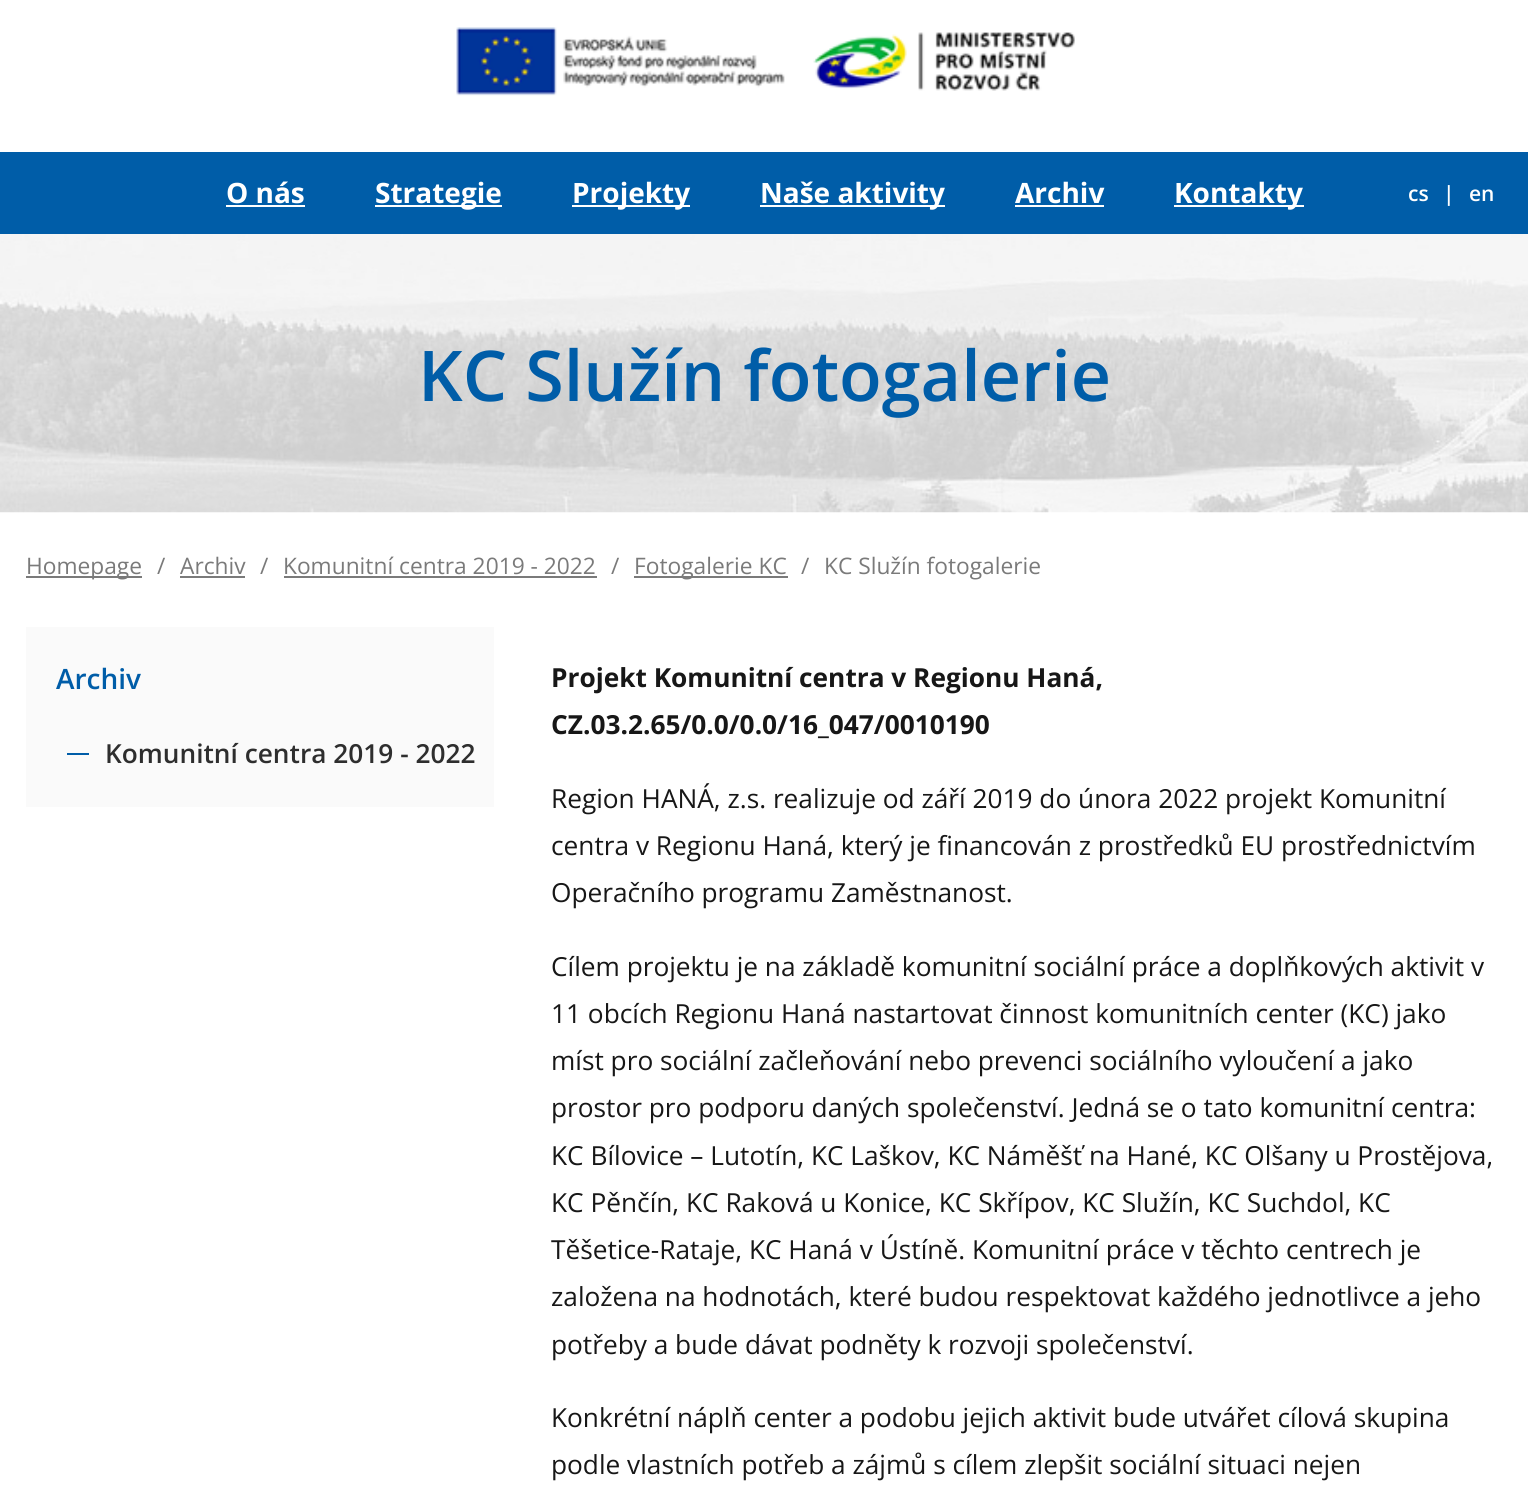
#include <cairo/cairo.h>
#include <math.h>
#include <stddef.h>

typedef struct { double x, y; const char *s; } line_t;
typedef struct { double x, y, w, h; unsigned color; } box_t;
static cairo_t *cr;

static void rgb(unsigned color)
{
	cairo_set_source_rgb(cr, (color >> 16) / 255.0, (color >> 8 & 255) / 255.0, (color & 255) / 255.0);
}

static void image(const char *path, double x, double y, double w, double h)
{
	cairo_surface_t *image = cairo_image_surface_create_from_png(path);
	cairo_save(cr);
	cairo_set_source_surface(cr, image, x, y);
	cairo_rectangle(cr, x, y, w, h);
	cairo_fill(cr);
	cairo_restore(cr);
	cairo_surface_destroy(image);
}

int main(void) {
	cairo_surface_t *surface = cairo_image_surface_create(CAIRO_FORMAT_RGB24, 1528, 1488);
	cr = cairo_create(surface);
	cairo_font_options_t *options = cairo_font_options_create();
	cairo_font_options_set_hint_metrics(options, CAIRO_HINT_METRICS_OFF);
	cairo_font_options_set_hint_style(options, CAIRO_HINT_STYLE_NONE);
	cairo_set_font_options(cr, options);
	cairo_set_miter_limit(cr, 4);
	rgb(0xffffff);
	cairo_paint(cr);
	image("img/1.png", 456, 27, 619, 69);
	{
		static const box_t items[] = {
			{0, 152, 1528, 82, 0x005da8},
			{226, 205, 79, 2, 0xffffff},
			{375, 205, 127, 2, 0xffffff},
			{572, 205, 118, 2, 0xffffff},
			{760, 205, 185, 2, 0xffffff},
			{1015, 205, 89, 2, 0xffffff},
			{1174, 205, 130, 2, 0xffffff},
		};
		for (size_t i = 0; i < sizeof items / sizeof *items; i++) {
			rgb(items[i].color);
			cairo_rectangle(cr, items[i].x, items[i].y, items[i].w, items[i].h);
			cairo_fill(cr);
		}
	}
	image("img/2.png", 0, 234, 1528, 279);
	{
		static const box_t items[] = {
			{26, 576, 116, 2, 0x7a7a7a},
			{180, 576, 65, 2, 0x7a7a7a},
			{284, 576, 313, 2, 0x7a7a7a},
			{634, 576, 154, 2, 0x7a7a7a},
			{26, 627, 468, 180, 0xfafafa},
			{67, 753, 22, 2, 0x005da8},
		};
		for (size_t i = 0; i < sizeof items / sizeof *items; i++) {
			rgb(items[i].color);
			cairo_rectangle(cr, items[i].x, items[i].y, items[i].w, items[i].h);
			cairo_fill(cr);
		}
	}
	cairo_select_font_face(cr, "Open Sans", CAIRO_FONT_SLANT_NORMAL, CAIRO_FONT_WEIGHT_BOLD);
	cairo_set_font_size(cr, 28);
	rgb(0xffffff);
	{
		static const line_t items[] = {
			{226, 203, "O nás"},
			{375, 203, "Strategie"},
			{572, 203, "Projekty"},
			{760, 203, "Naše aktivity"},
			{1015, 203, "Archiv"},
			{1174, 203, "Kontakty"},
		};
		for (size_t i = 0; i < sizeof items / sizeof *items; i++) {
			cairo_move_to(cr, items[i].x, items[i].y);
			cairo_show_text(cr, items[i].s);
		}
	}
	cairo_select_font_face(cr, "Open Sans SemiBold", CAIRO_FONT_SLANT_NORMAL, CAIRO_FONT_WEIGHT_NORMAL);
	cairo_set_font_size(cr, 21);
	{
		static const line_t items[] = {
			{1408, 201, "cs"},
			{1443, 201, "|"},
			{1469, 201, "en"},
		};
		for (size_t i = 0; i < sizeof items / sizeof *items; i++) {
			cairo_move_to(cr, items[i].x, items[i].y);
			cairo_show_text(cr, items[i].s);
		}
	}
	cairo_set_font_size(cr, 70);
	rgb(0x005da8);
	cairo_move_to(cr, 418, 401);
	cairo_show_text(cr, "KC Služín fotogalerie");
	cairo_select_font_face(cr, "Open Sans", CAIRO_FONT_SLANT_NORMAL, CAIRO_FONT_WEIGHT_NORMAL);
	cairo_set_font_size(cr, 22.75);
	rgb(0x7a7a7a);
	{
		static const line_t items[] = {
			{26, 574, "Homepage"},
			{157, 574, "/"},
			{180, 574, "Archiv"},
			{260, 574, "/"},
			{283, 574, "Komunitní centra 2019 - 2022"},
			{611, 574, "/"},
			{634, 574, "Fotogalerie KC"},
			{801, 574, "/"},
			{824, 574, "KC Služín fotogalerie"},
		};
		for (size_t i = 0; i < sizeof items / sizeof *items; i++) {
			cairo_move_to(cr, items[i].x, items[i].y);
			cairo_show_text(cr, items[i].s);
		}
	}
	cairo_select_font_face(cr, "Open Sans SemiBold", CAIRO_FONT_SLANT_NORMAL, CAIRO_FONT_WEIGHT_NORMAL);
	cairo_set_font_size(cr, 28);
	rgb(0x005da8);
	cairo_move_to(cr, 56, 689);
	cairo_show_text(cr, "Archiv");
	cairo_set_font_size(cr, 26.25);
	rgb(0x2e2e2e);
	cairo_move_to(cr, 105, 763);
	cairo_show_text(cr, "Komunitní centra 2019 - 2022");
	cairo_select_font_face(cr, "Open Sans", CAIRO_FONT_SLANT_NORMAL, CAIRO_FONT_WEIGHT_BOLD);
	rgb(0x171717);
	cairo_move_to(cr, 551, 687);
	cairo_show_text(cr, "Projekt Komunitní centra v Regionu Haná,");
	cairo_move_to(cr, 551, 734);
	cairo_show_text(cr, "CZ.03.2.65/0.0/0.0/16_047/0010190");
	cairo_select_font_face(cr, "Open Sans", CAIRO_FONT_SLANT_NORMAL, CAIRO_FONT_WEIGHT_NORMAL);
	{
		static const line_t items[] = {
			{551, 808, "Region HANÁ, z.s. realizuje od září 2019 do února 2022 projekt Komunitní"},
			{551, 855, "centra v Regionu Haná, který je financován z prostředků EU prostřednictvím"},
			{551, 902, "Operačního programu Zaměstnanost."},
			{551, 976, "Cílem projektu je na základě komunitní sociální práce a doplňkových aktivit v"},
			{551, 1023, "11 obcích Regionu Haná nastartovat činnost komunitních center (KC) jako"},
			{551, 1070, "míst pro sociální začleňování nebo prevenci sociálního vyloučení a jako"},
			{551, 1117, "prostor pro podporu daných společenství. Jedná se o tato komunitní centra:"},
			{551, 1165, "KC Bílovice – Lutotín, KC Laškov, KC Náměšť na Hané, KC Olšany u Prostějova,"},
			{551, 1212, "KC Pěnčín, KC Raková u Konice, KC Skřípov, KC Služín, KC Suchdol, KC"},
			{551, 1259, "Těšetice-Rataje, KC Haná v Ústíně. Komunitní práce v těchto centrech je"},
			{551, 1306, "založena na hodnotách, které budou respektovat každého jednotlivce a jeho"},
			{551, 1354, "potřeby a bude dávat podněty k rozvoji společenství."},
			{551, 1427, "Konkrétní náplň center a podobu jejich aktivit bude utvářet cílová skupina"},
			{551, 1474, "podle vlastních potřeb a zájmů s cílem zlepšit sociální situaci nejen"},
		};
		for (size_t i = 0; i < sizeof items / sizeof *items; i++) {
			cairo_move_to(cr, items[i].x, items[i].y);
			cairo_show_text(cr, items[i].s);
		}
	}
	cairo_surface_write_to_png(surface, "page.png");
	cairo_font_options_destroy(options);
	cairo_destroy(cr);
	cairo_surface_destroy(surface);
	return 0;
}
